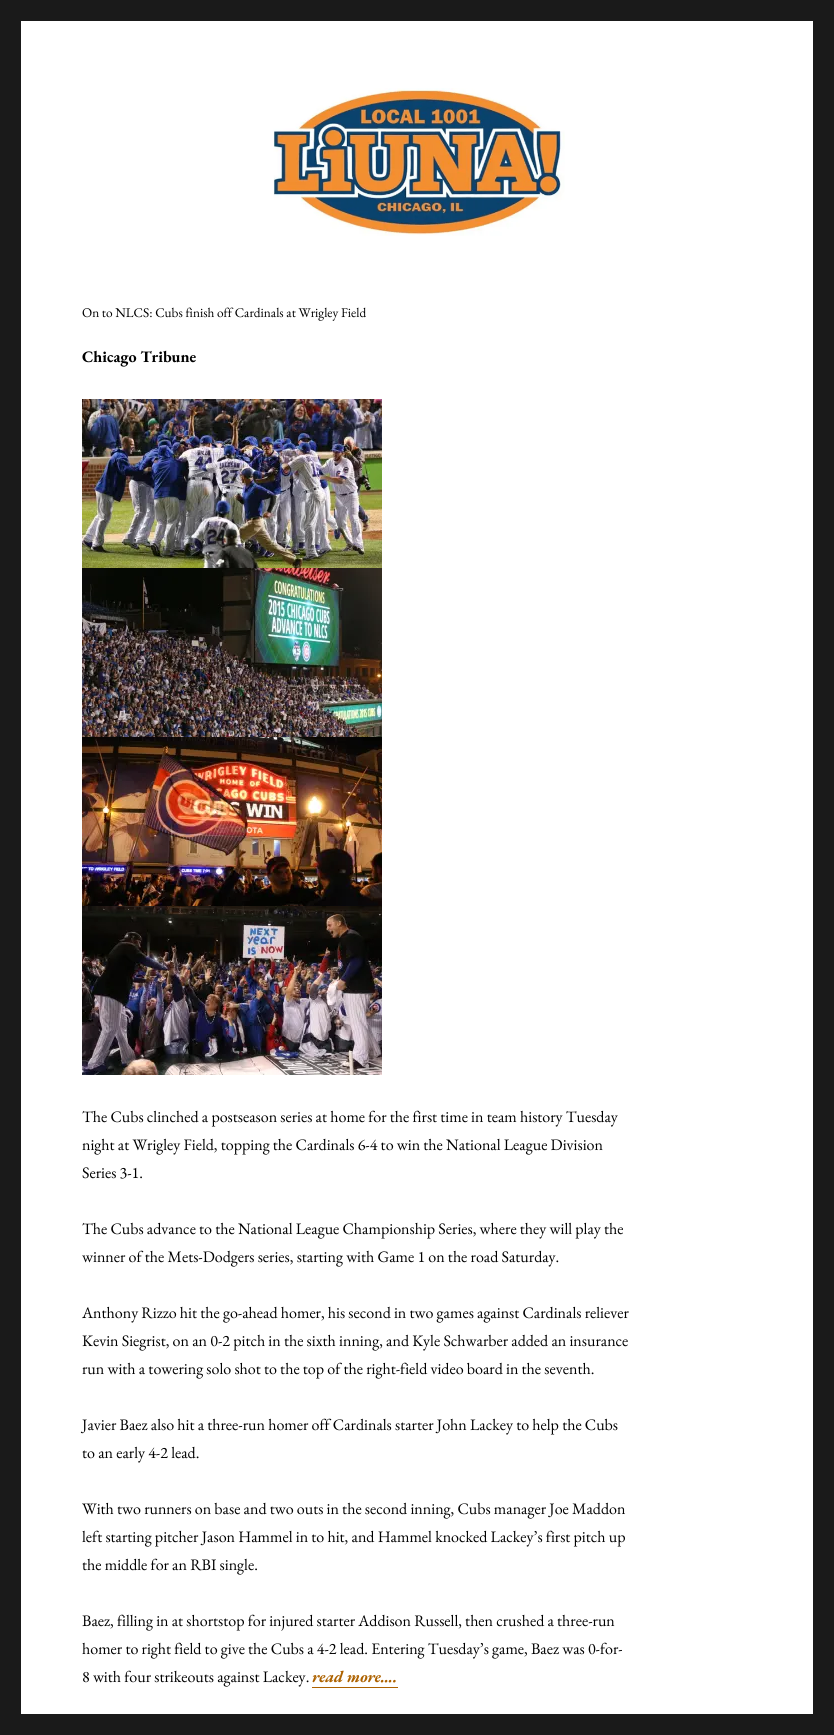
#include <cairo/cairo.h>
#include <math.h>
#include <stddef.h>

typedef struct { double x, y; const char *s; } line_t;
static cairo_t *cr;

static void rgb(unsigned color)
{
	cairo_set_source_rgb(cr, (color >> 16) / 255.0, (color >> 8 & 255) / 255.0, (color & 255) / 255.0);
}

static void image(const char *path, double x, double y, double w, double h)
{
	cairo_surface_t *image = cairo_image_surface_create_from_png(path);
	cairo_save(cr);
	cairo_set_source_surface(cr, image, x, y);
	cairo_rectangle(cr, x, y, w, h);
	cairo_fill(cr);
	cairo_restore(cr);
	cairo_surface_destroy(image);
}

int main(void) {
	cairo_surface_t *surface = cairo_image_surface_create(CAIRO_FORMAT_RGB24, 834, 1735);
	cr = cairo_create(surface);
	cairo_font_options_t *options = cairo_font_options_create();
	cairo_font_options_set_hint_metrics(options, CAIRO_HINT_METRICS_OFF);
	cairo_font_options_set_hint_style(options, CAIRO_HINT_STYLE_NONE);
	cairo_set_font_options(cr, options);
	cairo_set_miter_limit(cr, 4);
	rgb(0x1a1a1a);
	cairo_paint(cr);
	rgb(0xffffff);
	cairo_rectangle(cr, 21, 21, 792, 1693);
	cairo_fill(cr);
	image("img/1.png", 273, 88, 292, 148);
	image("img/2.png", 82, 399, 300, 169);
	image("img/3.png", 82, 568, 300, 169);
	image("img/4.png", 82, 737, 300, 169);
	image("img/5.png", 82, 906, 300, 169);
	rgb(0xad6200);
	cairo_rectangle(cr, 312, 1687, 86, 1);
	cairo_fill(cr);
	cairo_select_font_face(cr, "EB Garamond", CAIRO_FONT_SLANT_NORMAL, CAIRO_FONT_WEIGHT_NORMAL);
	cairo_set_font_size(cr, 13.3);
	rgb(0x000000);
	cairo_move_to(cr, 82, 317);
	cairo_show_text(cr, "On to NLCS: Cubs finish off Cardinals at Wrigley Field");
	cairo_select_font_face(cr, "EB Garamond", CAIRO_FONT_SLANT_NORMAL, CAIRO_FONT_WEIGHT_BOLD);
	cairo_set_font_size(cr, 16);
	cairo_move_to(cr, 82, 362);
	cairo_show_text(cr, "Chicago Tribune");
	cairo_select_font_face(cr, "EB Garamond", CAIRO_FONT_SLANT_NORMAL, CAIRO_FONT_WEIGHT_NORMAL);
	{
		static const line_t items[] = {
			{82, 1122, "The Cubs clinched a postseason series at home for the first time in team history Tuesday"},
			{82, 1150, "night at Wrigley Field, topping the Cardinals 6-4 to win the National League Division"},
			{82, 1178, "Series 3-1."},
			{82, 1234, "The Cubs advance to the National League Championship Series, where they will play the"},
			{82, 1262, "winner of the Mets-Dodgers series, starting with Game 1 on the road Saturday."},
			{82, 1318, "Anthony Rizzo hit the go-ahead homer, his second in two games against Cardinals reliever"},
			{82, 1346, "Kevin Siegrist, on an 0-2 pitch in the sixth inning, and Kyle Schwarber added an insurance"},
			{82, 1374, "run with a towering solo shot to the top of the right-field video board in the seventh."},
			{82, 1430, "Javier Baez also hit a three-run homer off Cardinals starter John Lackey to help the Cubs"},
			{82, 1458, "to an early 4-2 lead."},
			{82, 1514, "With two runners on base and two outs in the second inning, Cubs manager Joe Maddon"},
			{82, 1542, "left starting pitcher Jason Hammel in to hit, and Hammel knocked Lackey’s first pitch up"},
			{82, 1570, "the middle for an RBI single."},
			{82, 1626, "Baez, filling in at shortstop for injured starter Addison Russell, then crushed a three-run"},
			{82, 1654, "homer to right field to give the Cubs a 4-2 lead. Entering Tuesday’s game, Baez was 0-for-"},
			{82, 1682, "8 with four strikeouts against Lackey."},
		};
		for (size_t i = 0; i < sizeof items / sizeof *items; i++) {
			cairo_move_to(cr, items[i].x, items[i].y);
			cairo_show_text(cr, items[i].s);
		}
	}
	cairo_select_font_face(cr, "EB Garamond", CAIRO_FONT_SLANT_ITALIC, CAIRO_FONT_WEIGHT_BOLD);
	rgb(0xad6200);
	cairo_move_to(cr, 312, 1682);
	cairo_show_text(cr, "read more….");
	cairo_surface_write_to_png(surface, "page.png");
	cairo_font_options_destroy(options);
	cairo_destroy(cr);
	cairo_surface_destroy(surface);
	return 0;
}
